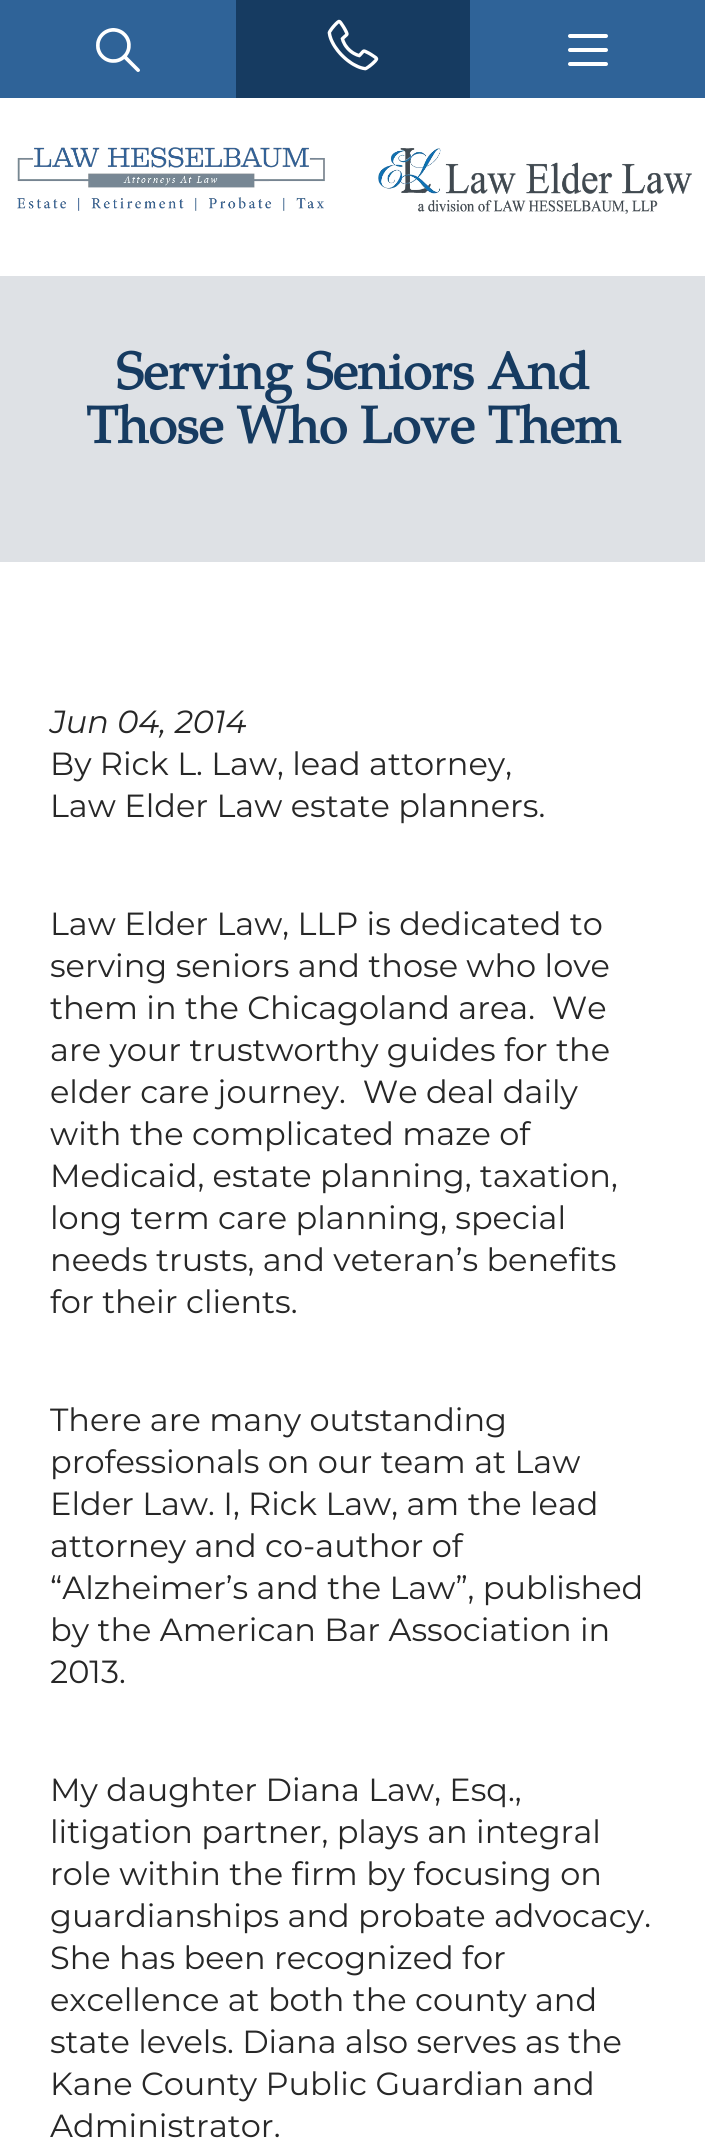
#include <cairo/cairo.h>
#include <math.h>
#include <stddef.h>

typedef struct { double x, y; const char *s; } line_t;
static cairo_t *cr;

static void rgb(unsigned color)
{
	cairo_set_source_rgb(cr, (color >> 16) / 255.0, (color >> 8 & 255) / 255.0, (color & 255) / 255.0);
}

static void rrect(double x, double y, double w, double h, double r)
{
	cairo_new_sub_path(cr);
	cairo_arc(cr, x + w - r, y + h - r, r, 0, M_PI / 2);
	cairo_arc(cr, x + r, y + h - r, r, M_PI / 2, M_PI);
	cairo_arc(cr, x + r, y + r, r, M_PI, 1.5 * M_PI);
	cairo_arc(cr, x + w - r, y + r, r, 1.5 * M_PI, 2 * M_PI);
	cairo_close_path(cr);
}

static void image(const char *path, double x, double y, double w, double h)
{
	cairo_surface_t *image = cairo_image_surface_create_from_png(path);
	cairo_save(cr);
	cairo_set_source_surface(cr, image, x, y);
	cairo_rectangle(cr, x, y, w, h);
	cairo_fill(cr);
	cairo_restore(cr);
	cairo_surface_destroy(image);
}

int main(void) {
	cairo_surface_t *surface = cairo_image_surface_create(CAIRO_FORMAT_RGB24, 705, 2145);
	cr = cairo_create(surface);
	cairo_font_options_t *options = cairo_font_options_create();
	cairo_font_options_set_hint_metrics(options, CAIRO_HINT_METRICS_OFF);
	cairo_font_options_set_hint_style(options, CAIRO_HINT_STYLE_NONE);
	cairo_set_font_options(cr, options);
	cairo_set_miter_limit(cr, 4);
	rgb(0xffffff);
	cairo_paint(cr);
	rgb(0x2f6398);
	cairo_rectangle(cr, 0, 0, 705, 98);
	cairo_fill(cr);
	image("img/1.png", 96, 28, 44, 44);
	rgb(0x163b61);
	cairo_rectangle(cr, 236, 0, 234, 98);
	cairo_fill(cr);
	image("img/2.png", 327, 19, 52, 52);
	rgb(0xffffff);
	rrect(568, 34, 40, 4, 2);
	cairo_fill(cr);
	rrect(568, 48, 40, 4, 2);
	cairo_fill(cr);
	rrect(568, 62, 40, 4, 2);
	cairo_fill(cr);
	image("img/3.png", 17, 147, 308, 64);
	image("img/4.png", 378, 148, 314, 66);
	rgb(0xdee1e5);
	cairo_rectangle(cr, 0, 276, 705, 286);
	cairo_fill(cr);
	cairo_select_font_face(cr, "Palatino", CAIRO_FONT_SLANT_NORMAL, CAIRO_FONT_WEIGHT_BOLD);
	cairo_set_font_size(cr, 52);
	rgb(0x163b61);
	cairo_move_to(cr, 116, 389);
	cairo_show_text(cr, "Serving Seniors And");
	cairo_move_to(cr, 86, 443);
	cairo_show_text(cr, "Those Who Love Them");
	cairo_select_font_face(cr, "Montserrat", CAIRO_FONT_SLANT_ITALIC, CAIRO_FONT_WEIGHT_NORMAL);
	cairo_set_font_size(cr, 32);
	rgb(0x272727);
	cairo_move_to(cr, 50, 733);
	cairo_show_text(cr, "Jun 04, 2014");
	cairo_select_font_face(cr, "Montserrat", CAIRO_FONT_SLANT_NORMAL, CAIRO_FONT_WEIGHT_NORMAL);
	{
		static const line_t items[] = {
			{50, 775, "By Rick L. Law, lead attorney,"},
			{50, 817, "Law Elder Law estate planners."},
			{50, 935, "Law Elder Law, LLP is dedicated to"},
			{50, 977, "serving seniors and those who love"},
			{50, 1019, "them in the Chicagoland area.  We"},
			{50, 1061, "are your trustworthy guides for the"},
			{50, 1103, "elder care journey.  We deal daily"},
			{50, 1145, "with the complicated maze of"},
			{50, 1187, "Medicaid, estate planning, taxation,"},
			{50, 1229, "long term care planning, special"},
			{50, 1271, "needs trusts, and veteran’s benefits"},
			{50, 1313, "for their clients."},
			{50, 1431, "There are many outstanding"},
			{50, 1473, "professionals on our team at Law"},
			{50, 1515, "Elder Law. I, Rick Law, am the lead"},
			{50, 1557, "attorney and co-author of"},
			{50, 1599, "“Alzheimer’s and the Law”, published"},
			{50, 1641, "by the American Bar Association in"},
			{50, 1683, "2013."},
			{50, 1801, "My daughter Diana Law, Esq.,"},
			{50, 1843, "litigation partner, plays an integral"},
			{50, 1885, "role within the firm by focusing on"},
			{50, 1927, "guardianships and probate advocacy."},
			{50, 1969, "She has been recognized for"},
			{50, 2011, "excellence at both the county and"},
			{50, 2053, "state levels. Diana also serves as the"},
			{50, 2095, "Kane County Public Guardian and"},
			{50, 2137, "Administrator."},
		};
		for (size_t i = 0; i < sizeof items / sizeof *items; i++) {
			cairo_move_to(cr, items[i].x, items[i].y);
			cairo_show_text(cr, items[i].s);
		}
	}
	cairo_surface_write_to_png(surface, "page.png");
	cairo_font_options_destroy(options);
	cairo_destroy(cr);
	cairo_surface_destroy(surface);
	return 0;
}
